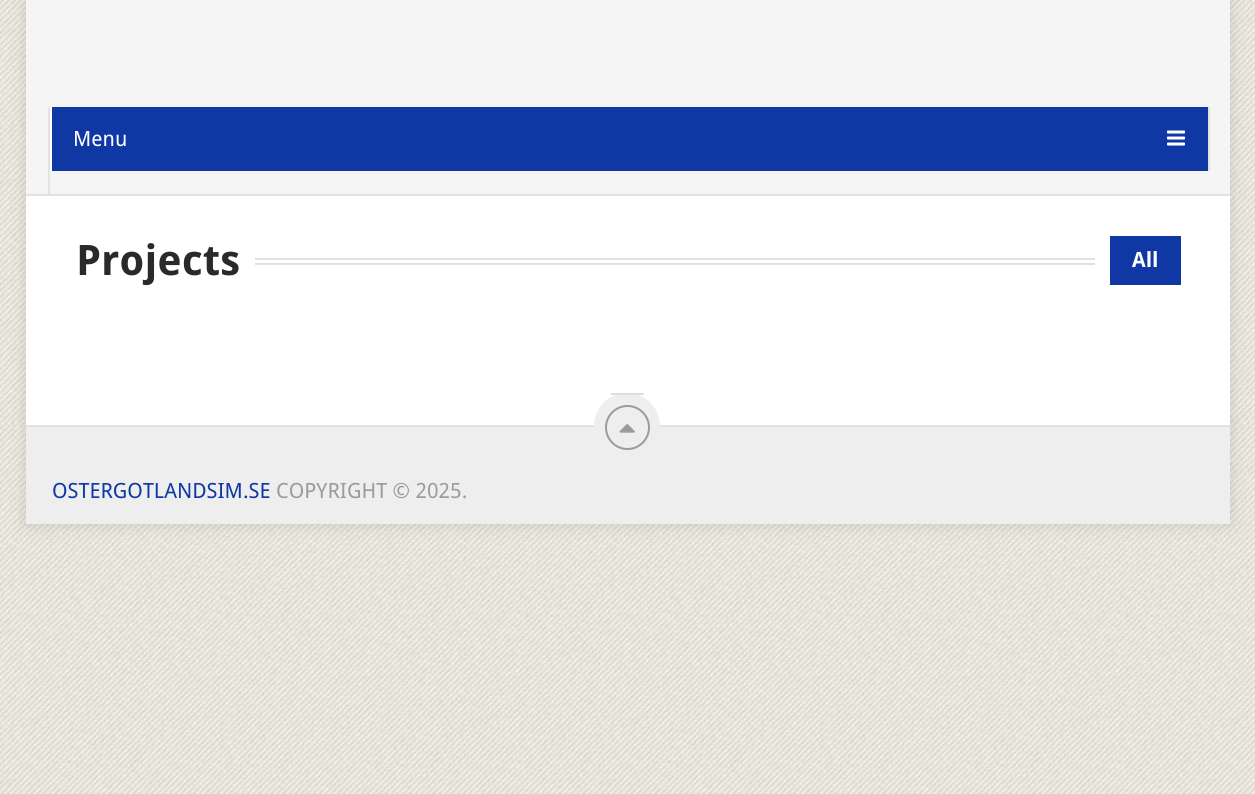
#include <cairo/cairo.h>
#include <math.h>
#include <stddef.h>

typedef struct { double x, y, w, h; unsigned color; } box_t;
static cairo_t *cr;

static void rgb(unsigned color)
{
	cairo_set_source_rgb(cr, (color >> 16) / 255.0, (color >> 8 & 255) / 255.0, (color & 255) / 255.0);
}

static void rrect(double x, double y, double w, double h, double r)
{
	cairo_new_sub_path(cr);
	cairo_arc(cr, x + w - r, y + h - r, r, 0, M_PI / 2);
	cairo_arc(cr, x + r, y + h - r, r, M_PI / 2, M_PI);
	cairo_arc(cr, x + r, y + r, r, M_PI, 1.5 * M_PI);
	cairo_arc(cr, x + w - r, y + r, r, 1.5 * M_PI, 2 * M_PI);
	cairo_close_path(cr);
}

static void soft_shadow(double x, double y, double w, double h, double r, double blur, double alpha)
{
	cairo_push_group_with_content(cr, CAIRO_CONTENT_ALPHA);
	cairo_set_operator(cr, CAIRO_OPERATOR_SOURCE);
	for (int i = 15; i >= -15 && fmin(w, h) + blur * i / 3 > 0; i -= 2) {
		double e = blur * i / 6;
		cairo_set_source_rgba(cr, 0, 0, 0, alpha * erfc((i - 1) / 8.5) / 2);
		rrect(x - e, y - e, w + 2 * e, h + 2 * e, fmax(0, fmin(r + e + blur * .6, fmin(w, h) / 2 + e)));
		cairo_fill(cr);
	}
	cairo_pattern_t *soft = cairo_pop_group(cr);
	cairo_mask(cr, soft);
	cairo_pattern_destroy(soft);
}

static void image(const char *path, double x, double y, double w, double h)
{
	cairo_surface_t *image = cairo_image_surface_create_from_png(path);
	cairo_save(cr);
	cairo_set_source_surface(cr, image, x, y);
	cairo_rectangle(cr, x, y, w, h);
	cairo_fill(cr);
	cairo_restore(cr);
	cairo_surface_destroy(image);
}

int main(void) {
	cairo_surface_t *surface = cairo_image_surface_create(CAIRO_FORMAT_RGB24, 1255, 794);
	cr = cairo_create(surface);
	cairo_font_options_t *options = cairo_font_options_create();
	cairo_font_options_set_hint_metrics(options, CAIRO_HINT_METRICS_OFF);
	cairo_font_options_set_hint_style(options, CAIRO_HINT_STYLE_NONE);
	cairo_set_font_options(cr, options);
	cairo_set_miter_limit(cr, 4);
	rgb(0xffffff);
	cairo_paint(cr);
	image("img/1.png", 0, 0, 1255, 794);
	rgb(0x323232);
	soft_shadow(26, 0, 1204, 524, 0, 7.5, 0.17);
	{
		static const box_t items[] = {
			{26, 196, 1204, 229, 0xffffff},
			{26, 0, 1204, 194, 0xf5f5f5},
			{26, 194, 1204, 2, 0xe2e2e2},
			{48, 107, 2, 87, 0xe2e2e2},
			{52, 107, 1156, 64, 0x1038a5},
			{1208, 107, 2, 64, 0xe2e2e2},
			{50, 107, 2, 64, 0xffffff},
		};
		for (size_t i = 0; i < sizeof items / sizeof *items; i++) {
			rgb(items[i].color);
			cairo_rectangle(cr, items[i].x, items[i].y, items[i].w, items[i].h);
			cairo_fill(cr);
		}
	}
	image("img/2.png", 1167, 130, 18, 16);
	{
		static const box_t items[] = {
			{255, 258, 840, 2, 0xe2e2e2},
			{255, 263, 840, 2, 0xe2e2e2},
			{1110, 236, 71, 49, 0x1038a5},
			{26, 427, 1204, 97, 0xeeeeee},
			{26, 425, 1204, 2, 0xe2e2e2},
		};
		for (size_t i = 0; i < sizeof items / sizeof *items; i++) {
			rgb(items[i].color);
			cairo_rectangle(cr, items[i].x, items[i].y, items[i].w, items[i].h);
			cairo_fill(cr);
		}
	}
	rgb(0xeeeeee);
	rrect(594, 393, 66, 68, 33);
	cairo_fill(cr);
	rgb(0xdddddd);
	cairo_rectangle(cr, 611, 393, 33, 2);
	cairo_fill(cr);
	cairo_arc(cr, 627.5, 427.5, 21.5, 0, 2 * M_PI);
	rgb(0x9b9b9b);
	cairo_stroke(cr);
	image("img/3.png", 619, 424, 16, 9);
	cairo_select_font_face(cr, "Droid Sans", CAIRO_FONT_SLANT_NORMAL, CAIRO_FONT_WEIGHT_NORMAL);
	cairo_set_font_size(cr, 21);
	rgb(0xffffff);
	cairo_move_to(cr, 73, 146);
	cairo_show_text(cr, "Menu");
	cairo_select_font_face(cr, "Droid Sans", CAIRO_FONT_SLANT_NORMAL, CAIRO_FONT_WEIGHT_BOLD);
	cairo_set_font_size(cr, 42);
	rgb(0x2a2a2a);
	cairo_move_to(cr, 76, 275);
	cairo_show_text(cr, "Projects");
	cairo_set_font_size(cr, 21);
	rgb(0xffffff);
	cairo_move_to(cr, 1132, 267);
	cairo_show_text(cr, "All");
	cairo_select_font_face(cr, "Droid Sans", CAIRO_FONT_SLANT_NORMAL, CAIRO_FONT_WEIGHT_NORMAL);
	rgb(0x1038a5);
	cairo_move_to(cr, 52, 498);
	cairo_show_text(cr, "OSTERGOTLANDSIM.SE");
	rgb(0x9b9b9b);
	cairo_move_to(cr, 276, 498);
	cairo_show_text(cr, "COPYRIGHT © 2025.");
	cairo_surface_write_to_png(surface, "page.png");
	cairo_font_options_destroy(options);
	cairo_destroy(cr);
	cairo_surface_destroy(surface);
	return 0;
}
